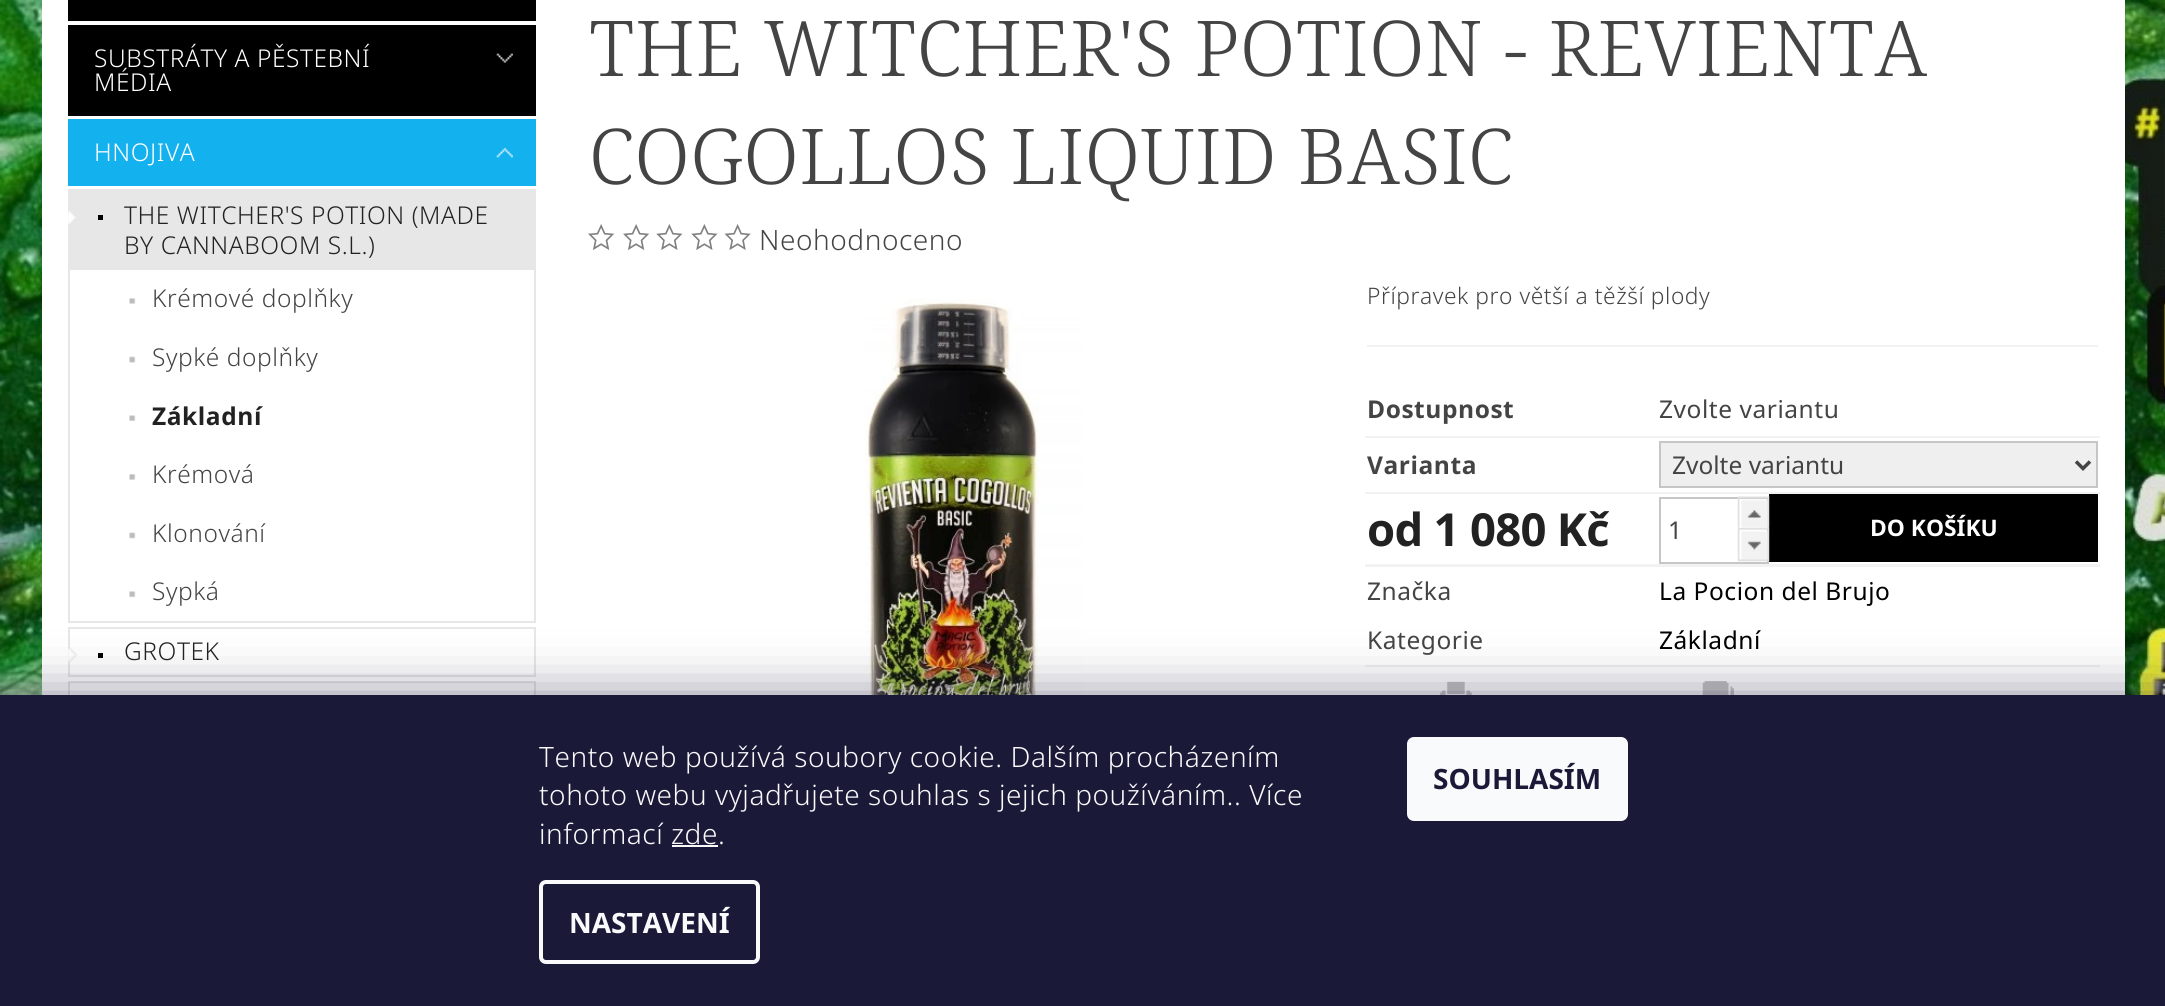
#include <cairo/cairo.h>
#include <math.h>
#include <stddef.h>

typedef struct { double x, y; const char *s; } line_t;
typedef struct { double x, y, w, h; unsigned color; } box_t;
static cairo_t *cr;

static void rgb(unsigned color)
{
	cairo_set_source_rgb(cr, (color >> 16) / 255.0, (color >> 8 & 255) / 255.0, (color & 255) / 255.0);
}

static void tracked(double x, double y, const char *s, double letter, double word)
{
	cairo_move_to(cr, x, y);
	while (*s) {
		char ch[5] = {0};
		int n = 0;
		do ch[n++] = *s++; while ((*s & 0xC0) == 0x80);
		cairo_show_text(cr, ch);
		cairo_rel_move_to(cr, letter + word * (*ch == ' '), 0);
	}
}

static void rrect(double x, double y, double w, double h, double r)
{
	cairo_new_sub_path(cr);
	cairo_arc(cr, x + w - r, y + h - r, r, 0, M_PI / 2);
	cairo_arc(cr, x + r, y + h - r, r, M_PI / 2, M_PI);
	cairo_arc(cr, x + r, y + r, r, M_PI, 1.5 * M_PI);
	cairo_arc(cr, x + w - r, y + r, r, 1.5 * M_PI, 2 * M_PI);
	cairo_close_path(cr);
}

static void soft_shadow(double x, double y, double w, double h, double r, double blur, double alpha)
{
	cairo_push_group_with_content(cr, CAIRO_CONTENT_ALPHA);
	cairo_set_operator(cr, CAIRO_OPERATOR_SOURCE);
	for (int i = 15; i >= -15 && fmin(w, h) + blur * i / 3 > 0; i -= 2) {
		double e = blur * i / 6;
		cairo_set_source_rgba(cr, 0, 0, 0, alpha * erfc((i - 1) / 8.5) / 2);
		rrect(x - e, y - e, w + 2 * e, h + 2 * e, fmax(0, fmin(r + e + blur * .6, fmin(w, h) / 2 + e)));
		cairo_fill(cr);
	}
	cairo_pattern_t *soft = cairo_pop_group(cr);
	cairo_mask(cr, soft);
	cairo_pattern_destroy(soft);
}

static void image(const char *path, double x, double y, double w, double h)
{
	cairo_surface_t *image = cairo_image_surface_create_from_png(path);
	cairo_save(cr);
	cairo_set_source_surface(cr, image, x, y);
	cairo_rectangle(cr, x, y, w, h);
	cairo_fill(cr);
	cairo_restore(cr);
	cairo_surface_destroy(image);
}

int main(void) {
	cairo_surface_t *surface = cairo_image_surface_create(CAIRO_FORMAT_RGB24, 2165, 1006);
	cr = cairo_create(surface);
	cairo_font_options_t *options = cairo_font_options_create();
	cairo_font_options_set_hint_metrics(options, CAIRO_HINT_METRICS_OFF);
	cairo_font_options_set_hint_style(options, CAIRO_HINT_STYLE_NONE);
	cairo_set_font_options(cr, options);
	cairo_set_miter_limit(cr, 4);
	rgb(0xffffff);
	cairo_paint(cr);
	image("img/1.png", 0, 0, 2165, 695);
	{
		static const box_t items[] = {
			{42, 0, 2083, 695, 0xffffff},
			{68, 0, 468, 21, 0x000000},
			{68, 25, 468, 91, 0x000000},
		};
		for (size_t i = 0; i < sizeof items / sizeof *items; i++) {
			rgb(items[i].color);
			cairo_rectangle(cr, items[i].x, items[i].y, items[i].w, items[i].h);
			cairo_fill(cr);
		}
	}
	image("img/2.png", 496, 53, 17, 10);
	rgb(0x14b1ef);
	cairo_rectangle(cr, 68, 119, 468, 67);
	cairo_fill(cr);
	image("img/3.png", 496, 147, 17, 11);
	cairo_rectangle(cr, 69, 190, 466, 432);
	rgb(0xe7e7e7);
	cairo_stroke(cr);
	cairo_rectangle(cr, 70, 191, 464, 79);
	cairo_fill(cr);
	image("img/4.png", 68, 211, 8, 13);
	rgb(0x000000);
	cairo_rectangle(cr, 98, 215, 5, 5);
	cairo_fill(cr);
	image("img/5.png", 129, 298, 7, 6);
	image("img/6.png", 129, 356, 7, 7);
	image("img/7.png", 129, 415, 7, 6);
	image("img/8.png", 129, 474, 7, 6);
	image("img/9.png", 129, 532, 7, 7);
	image("img/10.png", 129, 591, 7, 7);
	cairo_rectangle(cr, 69, 628, 466, 48);
	rgb(0xe7e7e7);
	cairo_stroke(cr);
	image("img/11.png", 68, 647, 10, 15);
	rgb(0x000000);
	cairo_rectangle(cr, 98, 653, 5, 5);
	cairo_fill(cr);
	cairo_rectangle(cr, 69, 682, 466, 49);
	rgb(0xe7e7e7);
	cairo_stroke(cr);
	image("img/12.png", 588, 224, 26, 26);
	image("img/12.png", 623, 224, 26, 26);
	image("img/13.png", 656, 224, 27, 26);
	image("img/13.png", 691, 224, 27, 26);
	image("img/14.png", 724, 224, 27, 26);
	image("img/15.png", 865, 298, 219, 397);
	{
		static const box_t items[] = {
			{1367, 345, 731, 2, 0xf2f2f2},
			{1365, 436, 735, 2, 0xf2f2f2},
			{1365, 492, 735, 2, 0xf2f2f2},
		};
		for (size_t i = 0; i < sizeof items / sizeof *items; i++) {
			rgb(items[i].color);
			cairo_rectangle(cr, items[i].x, items[i].y, items[i].w, items[i].h);
			cairo_fill(cr);
		}
	}
	rgb(0xefefef);
	cairo_rectangle(cr, 1660, 442, 437, 45);
	cairo_fill_preserve(cr);
	rgb(0xc6c6c6);
	cairo_stroke(cr);
	cairo_new_path(cr);
	cairo_move_to(cr, 2076, 461.5);
	cairo_line_to(cr, 2083, 468.5);
	cairo_line_to(cr, 2090, 461.5);
	rgb(0x444444);
	cairo_set_line_width(cr, 3.5);
	cairo_stroke(cr);
	rgb(0xf2f2f2);
	cairo_rectangle(cr, 1365, 564, 735, 3);
	cairo_fill(cr);
	cairo_rectangle(cr, 1660, 498, 108, 65);
	rgb(0xc6c6c6);
	cairo_set_line_width(cr, 2);
	cairo_stroke(cr);
	rgb(0x000000);
	cairo_rectangle(cr, 1769, 494, 329, 68);
	cairo_fill(cr);
	image("img/16.png", 1737, 496, 33, 33);
	image("img/17.png", 1737, 528, 33, 34);
	rgb(0xf2f2f2);
	cairo_rectangle(cr, 1365, 665, 735, 2);
	cairo_fill(cr);
	image("img/18.png", 1440, 681, 32, 14);
	image("img/19.png", 1702, 681, 32, 14);
	rgb(0x1b1939);
	soft_shadow(0, 695, 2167, 311, 0, 26, 0.5);
	rgb(0x1a1937);
	cairo_rectangle(cr, 0, 695, 2165, 311);
	cairo_fill(cr);
	rgb(0xf8fafb);
	cairo_rectangle(cr, 672, 845, 46, 2);
	cairo_fill(cr);
	rrect(541, 882, 217, 80, 5);
	cairo_set_line_width(cr, 4);
	cairo_stroke(cr);
	rrect(1407, 737, 221, 84, 7);
	cairo_fill(cr);
	cairo_select_font_face(cr, "Noto Sans Light", CAIRO_FONT_SLANT_NORMAL, CAIRO_FONT_WEIGHT_NORMAL);
	cairo_set_font_size(cr, 24.5);
	rgb(0xffffff);
	{
		static const line_t items[] = {
			{94, 67, "SUBSTRÁTY A PĚSTEBNÍ"},
			{94, 91, "MÉDIA"},
			{94, 161, "HNOJIVA"},
		};
		for (size_t i = 0; i < sizeof items / sizeof *items; i++) {
			tracked(items[i].x, items[i].y, items[i].s, 0.55, 0);
		}
	}
	rgb(0x222222);
	tracked(124, 224, "THE WITCHER'S POTION (MADE", 0.55, 0);
	tracked(124, 254, "BY CANNABOOM S.L.)", 0.55, 0);
	rgb(0x444444);
	tracked(152, 307, "Krémové doplňky", 0.55, 0);
	tracked(152, 366, "Sypké doplňky", 0.55, 0);
	cairo_select_font_face(cr, "Noto Sans", CAIRO_FONT_SLANT_NORMAL, CAIRO_FONT_WEIGHT_BOLD);
	rgb(0x222222);
	tracked(152, 425, "Základní", 0.55, 0);
	cairo_select_font_face(cr, "Noto Sans Light", CAIRO_FONT_SLANT_NORMAL, CAIRO_FONT_WEIGHT_NORMAL);
	rgb(0x444444);
	{
		static const line_t items[] = {
			{152, 483, "Krémová"},
			{152, 542, "Klonování"},
			{152, 600, "Sypká"},
		};
		for (size_t i = 0; i < sizeof items / sizeof *items; i++) {
			tracked(items[i].x, items[i].y, items[i].s, 0.55, 0);
		}
	}
	rgb(0x222222);
	tracked(124, 660, "GROTEK", 0.55, 0);
	cairo_select_font_face(cr, "Noto Serif Light", CAIRO_FONT_SLANT_NORMAL, CAIRO_FONT_WEIGHT_NORMAL);
	cairo_set_font_size(cr, 77);
	rgb(0x444444);
	tracked(589, 76, "THE WITCHER'S POTION - REVIENTA", 0.55, 0);
	tracked(589, 184, "COGOLLOS LIQUID BASIC", 0.55, 0);
	cairo_select_font_face(cr, "Noto Sans Light", CAIRO_FONT_SLANT_NORMAL, CAIRO_FONT_WEIGHT_NORMAL);
	cairo_set_font_size(cr, 28);
	tracked(759, 250, "Neohodnoceno", 0.55, 0);
	cairo_set_font_size(cr, 22.75);
	tracked(1367, 304, "Přípravek pro větší a těžší plody", 0.55, 0);
	cairo_select_font_face(cr, "Noto Sans", CAIRO_FONT_SLANT_NORMAL, CAIRO_FONT_WEIGHT_BOLD);
	cairo_set_font_size(cr, 24.5);
	tracked(1367, 418, "Dostupnost", 0.55, 0);
	cairo_select_font_face(cr, "Noto Sans", CAIRO_FONT_SLANT_NORMAL, CAIRO_FONT_WEIGHT_NORMAL);
	tracked(1659, 418, "Zvolte variantu", 0.55, 0);
	cairo_select_font_face(cr, "Noto Sans", CAIRO_FONT_SLANT_NORMAL, CAIRO_FONT_WEIGHT_BOLD);
	tracked(1367, 474, "Varianta", 0.55, 0);
	cairo_select_font_face(cr, "Noto Sans", CAIRO_FONT_SLANT_NORMAL, CAIRO_FONT_WEIGHT_NORMAL);
	cairo_move_to(cr, 1672, 474);
	cairo_show_text(cr, "Zvolte variantu");
	cairo_select_font_face(cr, "Noto Sans", CAIRO_FONT_SLANT_NORMAL, CAIRO_FONT_WEIGHT_BOLD);
	cairo_set_font_size(cr, 45.5);
	rgb(0x222222);
	tracked(1367, 546, "od 1 080 Kč", -0.75, 0);
	cairo_select_font_face(cr, "Noto Sans", CAIRO_FONT_SLANT_NORMAL, CAIRO_FONT_WEIGHT_NORMAL);
	cairo_set_font_size(cr, 24.5);
	rgb(0x444444);
	cairo_move_to(cr, 1668, 539);
	cairo_show_text(cr, "1");
	cairo_select_font_face(cr, "Noto Sans", CAIRO_FONT_SLANT_NORMAL, CAIRO_FONT_WEIGHT_BOLD);
	cairo_set_font_size(cr, 22.75);
	rgb(0xffffff);
	cairo_move_to(cr, 1870, 536);
	cairo_show_text(cr, "DO KOŠÍKU");
	cairo_select_font_face(cr, "Noto Sans", CAIRO_FONT_SLANT_NORMAL, CAIRO_FONT_WEIGHT_NORMAL);
	cairo_set_font_size(cr, 24.5);
	rgb(0x444444);
	tracked(1367, 600, "Značka", 0.55, 0);
	rgb(0x000000);
	tracked(1659, 600, "La Pocion del Brujo", 0.55, 0);
	rgb(0x444444);
	tracked(1367, 649, "Kategorie", 0.55, 0);
	rgb(0x000000);
	tracked(1659, 649, "Základní", 0.55, 0);
	cairo_select_font_face(cr, "Noto Sans Light", CAIRO_FONT_SLANT_NORMAL, CAIRO_FONT_WEIGHT_NORMAL);
	cairo_set_font_size(cr, 28);
	rgb(0xf8fafb);
	{
		static const line_t items[] = {
			{539, 767, "Tento web používá soubory cookie. Dalším procházením"},
			{539, 805, "tohoto webu vyjadřujete souhlas s jejich používáním.. Více"},
			{539, 844, "informací zde."},
		};
		for (size_t i = 0; i < sizeof items / sizeof *items; i++) {
			tracked(items[i].x, items[i].y, items[i].s, 0.55, 0);
		}
	}
	cairo_select_font_face(cr, "Noto Sans", CAIRO_FONT_SLANT_NORMAL, CAIRO_FONT_WEIGHT_BOLD);
	cairo_move_to(cr, 569, 933);
	cairo_show_text(cr, "NASTAVENÍ");
	rgb(0x1a1937);
	cairo_move_to(cr, 1433, 789);
	cairo_show_text(cr, "SOUHLASÍM");
	cairo_surface_write_to_png(surface, "page.png");
	cairo_font_options_destroy(options);
	cairo_destroy(cr);
	cairo_surface_destroy(surface);
	return 0;
}
